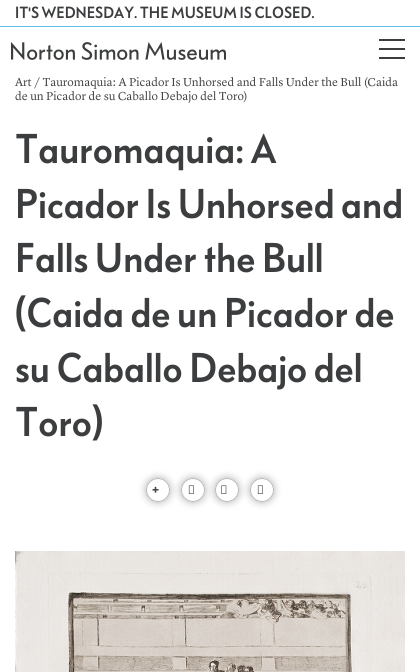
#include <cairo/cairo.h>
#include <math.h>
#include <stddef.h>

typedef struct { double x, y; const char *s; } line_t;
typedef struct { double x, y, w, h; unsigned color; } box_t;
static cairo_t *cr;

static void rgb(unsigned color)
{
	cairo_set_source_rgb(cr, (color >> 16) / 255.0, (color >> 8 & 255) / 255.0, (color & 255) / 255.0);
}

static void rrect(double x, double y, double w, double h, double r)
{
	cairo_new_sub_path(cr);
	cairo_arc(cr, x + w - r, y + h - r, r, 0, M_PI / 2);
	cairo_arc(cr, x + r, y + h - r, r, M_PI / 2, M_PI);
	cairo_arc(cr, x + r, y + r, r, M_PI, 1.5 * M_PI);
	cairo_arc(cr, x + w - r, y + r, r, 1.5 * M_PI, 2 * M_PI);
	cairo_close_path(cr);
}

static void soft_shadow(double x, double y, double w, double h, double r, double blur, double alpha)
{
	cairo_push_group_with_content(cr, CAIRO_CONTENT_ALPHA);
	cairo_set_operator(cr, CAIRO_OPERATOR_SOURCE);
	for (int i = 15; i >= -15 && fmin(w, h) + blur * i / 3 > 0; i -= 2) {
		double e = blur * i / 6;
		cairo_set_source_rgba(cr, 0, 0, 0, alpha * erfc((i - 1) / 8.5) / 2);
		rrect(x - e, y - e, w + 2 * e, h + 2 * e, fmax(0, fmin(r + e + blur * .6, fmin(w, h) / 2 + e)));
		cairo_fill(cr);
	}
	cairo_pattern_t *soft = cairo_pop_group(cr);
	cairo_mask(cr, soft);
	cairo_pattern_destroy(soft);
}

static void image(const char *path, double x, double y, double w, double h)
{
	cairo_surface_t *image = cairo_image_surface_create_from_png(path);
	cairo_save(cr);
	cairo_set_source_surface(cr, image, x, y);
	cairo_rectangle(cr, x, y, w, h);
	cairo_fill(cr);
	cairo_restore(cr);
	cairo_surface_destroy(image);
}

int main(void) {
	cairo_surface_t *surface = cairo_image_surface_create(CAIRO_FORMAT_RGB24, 420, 672);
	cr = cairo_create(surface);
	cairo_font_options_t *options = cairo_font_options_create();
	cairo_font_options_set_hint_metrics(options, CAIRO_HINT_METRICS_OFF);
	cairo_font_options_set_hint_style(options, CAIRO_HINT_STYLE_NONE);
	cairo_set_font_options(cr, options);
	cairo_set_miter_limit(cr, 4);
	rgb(0xffffff);
	cairo_paint(cr);
	rgb(0x5bc2e7);
	cairo_rectangle(cr, 0, 26, 420, 1);
	cairo_fill(cr);
	image("img/1.png", 11, 42, 215, 18);
	{
		static const box_t items[] = {
			{379, 48, 26, 2, 0x3b3d3f},
			{379, 39, 26, 2, 0x3b3d3f},
			{379, 57, 26, 2, 0x3b3d3f},
		};
		for (size_t i = 0; i < sizeof items / sizeof *items; i++) {
			rgb(items[i].color);
			cairo_rectangle(cr, items[i].x, items[i].y, items[i].w, items[i].h);
			cairo_fill(cr);
		}
	}
	cairo_save(cr);
	cairo_set_fill_rule(cr, CAIRO_FILL_RULE_EVEN_ODD);
	cairo_new_path(cr);
	cairo_move_to(cr, 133, 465);
	cairo_line_to(cr, 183, 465);
	cairo_line_to(cr, 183, 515);
	cairo_line_to(cr, 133, 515);
	cairo_close_path(cr);
	cairo_move_to(cr, 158, 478);
	cairo_curve_to(cr, 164.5, 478, 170, 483.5, 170, 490);
	cairo_curve_to(cr, 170, 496.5, 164.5, 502, 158, 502);
	cairo_curve_to(cr, 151.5, 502, 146, 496.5, 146, 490);
	cairo_curve_to(cr, 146, 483.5, 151.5, 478, 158, 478);
	cairo_close_path(cr);
	cairo_clip(cr);
	rgb(0x000000);
	soft_shadow(146, 478, 24, 24, 12, 4, 0.3);
	cairo_restore(cr);
	cairo_set_source_rgba(cr, 1, 1, 1, 0.9);
	cairo_arc(cr, 158, 490, 11.5, 0, 2 * M_PI);
	cairo_fill_preserve(cr);
	rgb(0xb9b9b9);
	cairo_set_line_width(cr, 1);
	cairo_stroke(cr);
	cairo_save(cr);
	cairo_set_fill_rule(cr, CAIRO_FILL_RULE_EVEN_ODD);
	cairo_new_path(cr);
	cairo_move_to(cr, 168, 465);
	cairo_line_to(cr, 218, 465);
	cairo_line_to(cr, 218, 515);
	cairo_line_to(cr, 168, 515);
	cairo_close_path(cr);
	cairo_move_to(cr, 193, 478);
	cairo_curve_to(cr, 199.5, 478, 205, 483.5, 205, 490);
	cairo_curve_to(cr, 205, 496.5, 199.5, 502, 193, 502);
	cairo_curve_to(cr, 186.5, 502, 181, 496.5, 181, 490);
	cairo_curve_to(cr, 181, 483.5, 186.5, 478, 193, 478);
	cairo_close_path(cr);
	cairo_clip(cr);
	rgb(0x000000);
	soft_shadow(181, 478, 24, 24, 12, 4, 0.3);
	cairo_restore(cr);
	cairo_set_source_rgba(cr, 1, 1, 1, 0.9);
	cairo_arc(cr, 193, 490, 11.5, 0, 2 * M_PI);
	cairo_fill_preserve(cr);
	rgb(0xb9b9b9);
	cairo_stroke(cr);
	image("img/2.png", 188, 485, 6, 9);
	cairo_save(cr);
	cairo_set_fill_rule(cr, CAIRO_FILL_RULE_EVEN_ODD);
	cairo_new_path(cr);
	cairo_move_to(cr, 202, 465);
	cairo_line_to(cr, 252, 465);
	cairo_line_to(cr, 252, 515);
	cairo_line_to(cr, 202, 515);
	cairo_close_path(cr);
	cairo_move_to(cr, 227, 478);
	cairo_curve_to(cr, 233.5, 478, 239, 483.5, 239, 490);
	cairo_curve_to(cr, 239, 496.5, 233.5, 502, 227, 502);
	cairo_curve_to(cr, 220.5, 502, 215, 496.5, 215, 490);
	cairo_curve_to(cr, 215, 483.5, 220.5, 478, 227, 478);
	cairo_close_path(cr);
	cairo_clip(cr);
	rgb(0x000000);
	soft_shadow(215, 478, 24, 24, 12, 4, 0.3);
	cairo_restore(cr);
	cairo_set_source_rgba(cr, 1, 1, 1, 0.9);
	cairo_arc(cr, 227, 490, 11.5, 0, 2 * M_PI);
	cairo_fill_preserve(cr);
	rgb(0xb9b9b9);
	cairo_stroke(cr);
	image("img/3.png", 221, 485, 6, 9);
	cairo_save(cr);
	cairo_set_fill_rule(cr, CAIRO_FILL_RULE_EVEN_ODD);
	cairo_new_path(cr);
	cairo_move_to(cr, 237, 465);
	cairo_line_to(cr, 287, 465);
	cairo_line_to(cr, 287, 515);
	cairo_line_to(cr, 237, 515);
	cairo_close_path(cr);
	cairo_move_to(cr, 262, 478);
	cairo_curve_to(cr, 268.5, 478, 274, 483.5, 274, 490);
	cairo_curve_to(cr, 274, 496.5, 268.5, 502, 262, 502);
	cairo_curve_to(cr, 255.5, 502, 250, 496.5, 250, 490);
	cairo_curve_to(cr, 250, 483.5, 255.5, 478, 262, 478);
	cairo_close_path(cr);
	cairo_clip(cr);
	rgb(0x000000);
	soft_shadow(250, 478, 24, 24, 12, 4, 0.3);
	cairo_restore(cr);
	cairo_set_source_rgba(cr, 1, 1, 1, 0.9);
	cairo_arc(cr, 262, 490, 11.5, 0, 2 * M_PI);
	cairo_fill_preserve(cr);
	rgb(0xb9b9b9);
	cairo_stroke(cr);
	image("img/2.png", 257, 485, 6, 9);
	image("img/4.png", 15, 551, 390, 121);
	cairo_select_font_face(cr, "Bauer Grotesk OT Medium", CAIRO_FONT_SLANT_NORMAL, CAIRO_FONT_WEIGHT_NORMAL);
	cairo_set_font_size(cr, 16);
	rgb(0x3b3d3f);
	cairo_move_to(cr, 15, 18);
	cairo_show_text(cr, "IT'S WEDNESDAY. THE MUSEUM IS CLOSED.");
	cairo_select_font_face(cr, "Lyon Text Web", CAIRO_FONT_SLANT_NORMAL, CAIRO_FONT_WEIGHT_NORMAL);
	cairo_set_font_size(cr, 12);
	rgb(0x464646);
	cairo_move_to(cr, 15, 86);
	cairo_show_text(cr, "Art / Tauromaquia: A Picador Is Unhorsed and Falls Under the Bull (Caida");
	cairo_move_to(cr, 15, 100);
	cairo_show_text(cr, "de un Picador de su Caballo Debajo del Toro)");
	cairo_select_font_face(cr, "Bauer Grotesk OT Medium", CAIRO_FONT_SLANT_NORMAL, CAIRO_FONT_WEIGHT_NORMAL);
	cairo_set_font_size(cr, 41);
	rgb(0x3b3d3f);
	{
		static const line_t items[] = {
			{15, 163, "Tauromaquia: A"},
			{15, 218, "Picador Is Unhorsed and"},
			{15, 272, "Falls Under the Bull"},
			{15, 327, "(Caida de un Picador de"},
			{15, 382, "su Caballo Debajo del"},
			{15, 436, "Toro)"},
		};
		for (size_t i = 0; i < sizeof items / sizeof *items; i++) {
			cairo_move_to(cr, items[i].x, items[i].y);
			cairo_show_text(cr, items[i].s);
		}
	}
	cairo_select_font_face(cr, "Noto Sans Black", CAIRO_FONT_SLANT_NORMAL, CAIRO_FONT_WEIGHT_NORMAL);
	cairo_set_font_size(cr, 12);
	rgb(0x464646);
	cairo_move_to(cr, 152, 494);
	cairo_show_text(cr, "+");
	cairo_surface_write_to_png(surface, "page.png");
	cairo_font_options_destroy(options);
	cairo_destroy(cr);
	cairo_surface_destroy(surface);
	return 0;
}
